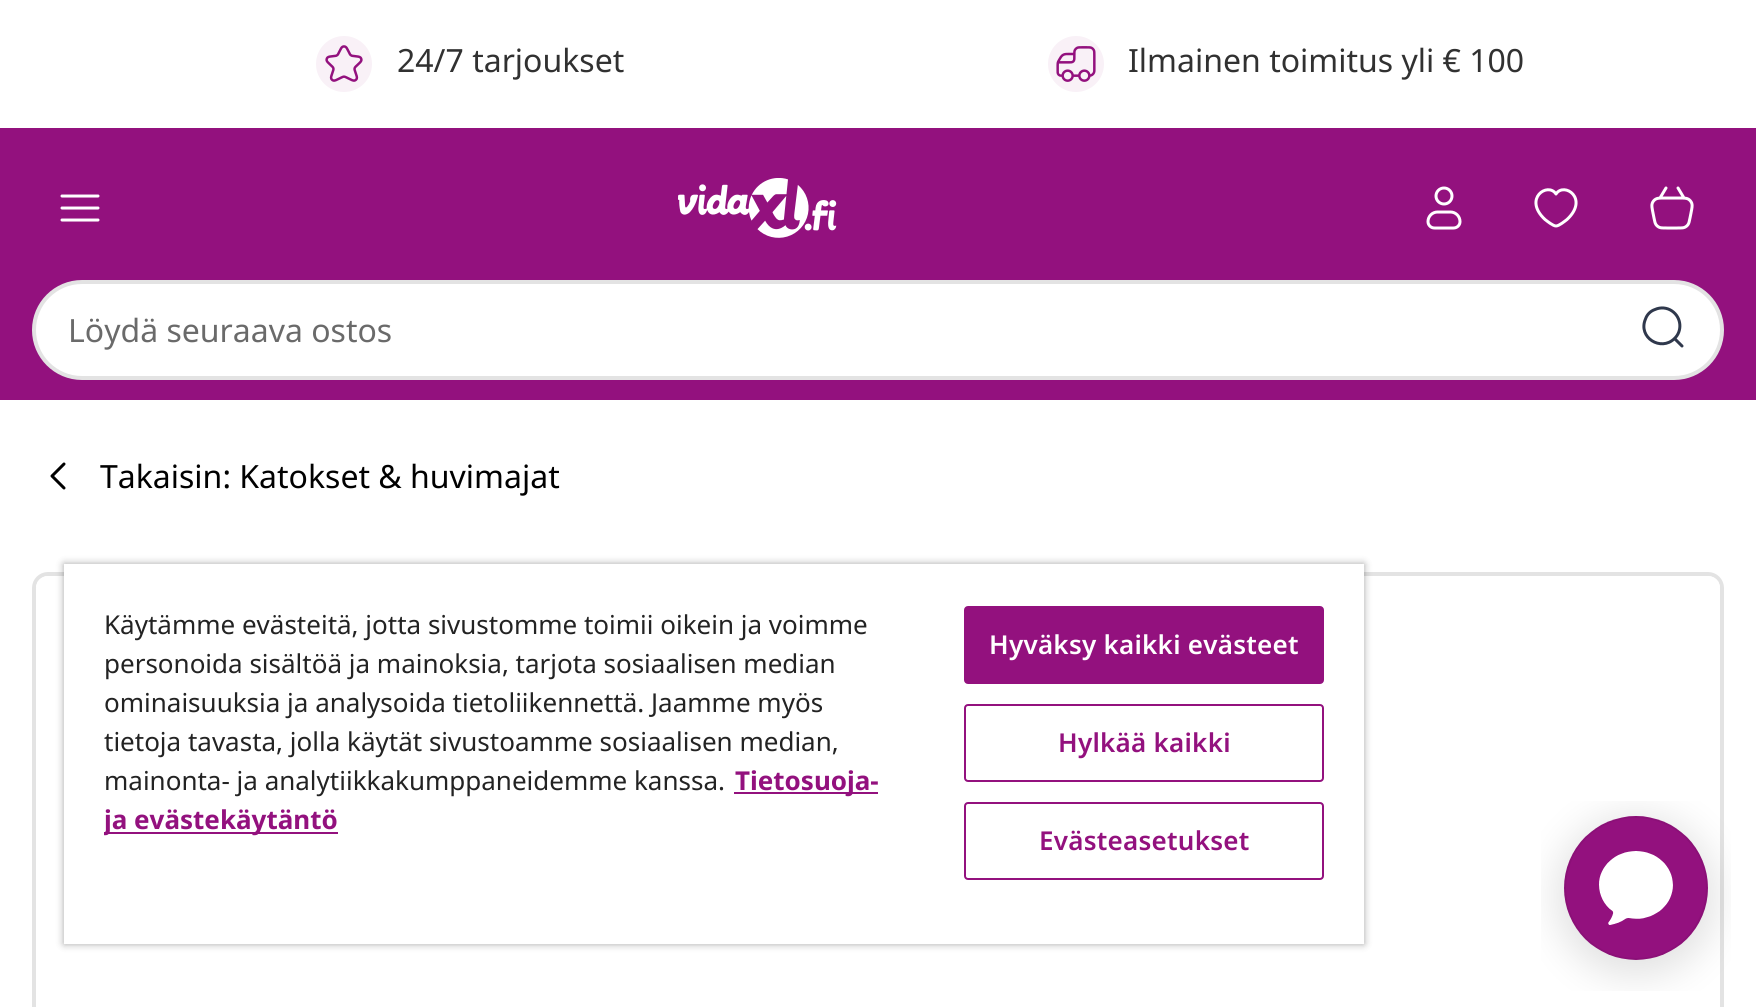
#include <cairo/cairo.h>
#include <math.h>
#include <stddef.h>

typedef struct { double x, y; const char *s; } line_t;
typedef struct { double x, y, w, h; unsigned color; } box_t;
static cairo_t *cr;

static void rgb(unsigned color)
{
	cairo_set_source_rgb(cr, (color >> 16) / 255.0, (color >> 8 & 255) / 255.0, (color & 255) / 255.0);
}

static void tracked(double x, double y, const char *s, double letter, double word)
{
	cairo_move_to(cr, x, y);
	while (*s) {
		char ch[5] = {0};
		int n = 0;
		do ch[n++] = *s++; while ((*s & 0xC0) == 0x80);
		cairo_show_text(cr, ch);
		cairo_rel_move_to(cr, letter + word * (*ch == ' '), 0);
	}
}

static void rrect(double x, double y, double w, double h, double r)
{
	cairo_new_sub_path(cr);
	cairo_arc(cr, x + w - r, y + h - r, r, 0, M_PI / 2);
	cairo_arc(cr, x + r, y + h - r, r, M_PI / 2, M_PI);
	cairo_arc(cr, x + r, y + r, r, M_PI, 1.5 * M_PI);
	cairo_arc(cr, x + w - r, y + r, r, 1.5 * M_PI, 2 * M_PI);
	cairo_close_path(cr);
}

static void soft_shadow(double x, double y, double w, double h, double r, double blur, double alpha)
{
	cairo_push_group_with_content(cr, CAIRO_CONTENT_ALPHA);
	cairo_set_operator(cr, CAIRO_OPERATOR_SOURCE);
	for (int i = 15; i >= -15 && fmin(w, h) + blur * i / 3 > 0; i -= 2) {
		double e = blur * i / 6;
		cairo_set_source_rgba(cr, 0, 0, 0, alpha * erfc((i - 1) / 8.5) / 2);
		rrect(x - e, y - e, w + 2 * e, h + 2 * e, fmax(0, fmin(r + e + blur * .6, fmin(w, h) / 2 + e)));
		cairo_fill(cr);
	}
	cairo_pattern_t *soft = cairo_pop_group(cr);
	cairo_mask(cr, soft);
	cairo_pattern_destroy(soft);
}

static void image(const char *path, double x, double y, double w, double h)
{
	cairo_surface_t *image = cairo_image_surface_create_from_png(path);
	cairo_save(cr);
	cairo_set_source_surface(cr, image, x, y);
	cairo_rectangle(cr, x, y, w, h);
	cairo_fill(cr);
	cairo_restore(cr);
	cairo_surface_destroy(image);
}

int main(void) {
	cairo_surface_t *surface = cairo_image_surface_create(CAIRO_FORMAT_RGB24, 1756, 1007);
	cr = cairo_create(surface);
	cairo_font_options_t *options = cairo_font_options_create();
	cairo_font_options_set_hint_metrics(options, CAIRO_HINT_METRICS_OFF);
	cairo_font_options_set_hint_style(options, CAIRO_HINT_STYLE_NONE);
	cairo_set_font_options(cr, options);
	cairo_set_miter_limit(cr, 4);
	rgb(0xffffff);
	cairo_paint(cr);
	rgb(0xf9f1f7);
	cairo_arc(cr, 344, 64, 28, 0, 2 * M_PI);
	cairo_fill(cr);
	image("img/1.png", 325, 45, 38, 37);
	cairo_arc(cr, 1076, 64, 28, 0, 2 * M_PI);
	cairo_fill(cr);
	image("img/2.png", 1056, 46, 40, 36);
	rgb(0x93117e);
	cairo_rectangle(cr, 0, 128, 1756, 272);
	cairo_fill(cr);
	cairo_new_path(cr);
	cairo_move_to(cr, 62, 196);
	cairo_line_to(cr, 98, 196);
	cairo_move_to(cr, 62, 208);
	cairo_line_to(cr, 98, 208);
	cairo_move_to(cr, 62, 220);
	cairo_line_to(cr, 98, 220);
	rgb(0xffffff);
	cairo_set_line_width(cr, 3);
	cairo_set_line_cap(cr, CAIRO_LINE_CAP_ROUND);
	cairo_stroke(cr);
	image("img/3.png", 678, 178, 159, 60);
	image("img/4.png", 1426, 186, 36, 44);
	cairo_new_path(cr);
	cairo_move_to(cr, 1556, 226);
	cairo_curve_to(cr, 1559, 226, 1565, 221, 1567, 219.5);
	cairo_curve_to(cr, 1589.5, 198.5, 1564, 181.5, 1556, 194);
	cairo_curve_to(cr, 1548, 181.5, 1522.5, 198.5, 1545, 219.5);
	cairo_curve_to(cr, 1547, 221, 1553, 226, 1556, 226);
	cairo_close_path(cr);
	cairo_set_line_join(cr, CAIRO_LINE_JOIN_ROUND);
	cairo_stroke(cr);
	image("img/5.png", 1650, 186, 44, 44);
	rrect(34, 282, 1688, 96, 48);
	cairo_fill_preserve(cr);
	rgb(0xe3e3e3);
	cairo_set_line_width(cr, 4);
	cairo_set_line_cap(cr, CAIRO_LINE_CAP_BUTT);
	cairo_set_line_join(cr, CAIRO_LINE_JOIN_MITER);
	cairo_stroke(cr);
	cairo_new_path(cr);
	cairo_move_to(cr, 1682, 346);
	cairo_line_to(cr, 1674.5, 338.5);
	cairo_move_to(cr, 1674.5, 338.5);
	cairo_curve_to(cr, 1682.5, 331, 1681.5, 317.5, 1672, 311);
	cairo_curve_to(cr, 1667, 307.5, 1660.5, 307, 1655, 309.5);
	cairo_curve_to(cr, 1650.5, 311, 1647, 314.5, 1645.5, 319);
	cairo_curve_to(cr, 1637.5, 337.5, 1661, 352, 1674.5, 338.5);
	cairo_close_path(cr);
	rgb(0x2f384c);
	cairo_set_line_width(cr, 3);
	cairo_set_line_cap(cr, CAIRO_LINE_CAP_ROUND);
	cairo_stroke(cr);
	cairo_new_path(cr);
	cairo_move_to(cr, 64, 464);
	cairo_line_to(cr, 52, 476);
	cairo_line_to(cr, 64, 488);
	rgb(0x000000);
	cairo_set_line_join(cr, CAIRO_LINE_JOIN_ROUND);
	cairo_stroke(cr);
	rrect(34, 574, 1688, 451, 14);
	rgb(0xe3e3e3);
	cairo_set_line_width(cr, 4);
	cairo_set_line_cap(cr, CAIRO_LINE_CAP_BUTT);
	cairo_set_line_join(cr, CAIRO_LINE_JOIN_MITER);
	cairo_stroke(cr);
	image("img/6.png", 36, 576, 1684, 11);
	rgb(0x000000);
	soft_shadow(64, 564, 1300, 380, 0, 4, 0.35);
	{
		static const box_t items[] = {
			{64, 564, 1300, 380, 0xffffff},
			{734, 792, 144, 2, 0x93117e},
			{104, 832, 234, 2, 0x93117e},
		};
		for (size_t i = 0; i < sizeof items / sizeof *items; i++) {
			rgb(items[i].color);
			cairo_rectangle(cr, items[i].x, items[i].y, items[i].w, items[i].h);
			cairo_fill(cr);
		}
	}
	rrect(965, 607, 358, 76, 3);
	cairo_fill_preserve(cr);
	cairo_set_line_width(cr, 2);
	cairo_stroke(cr);
	rrect(965, 705, 358, 76, 3);
	cairo_stroke(cr);
	rrect(965, 803, 358, 76, 3);
	cairo_stroke(cr);
	image("img/7.png", 1541, 801, 190, 190);
	cairo_select_font_face(cr, "Noto Sans", CAIRO_FONT_SLANT_NORMAL, CAIRO_FONT_WEIGHT_NORMAL);
	cairo_set_font_size(cr, 32);
	rgb(0x313131);
	cairo_move_to(cr, 397, 72);
	cairo_show_text(cr, "24/7 tarjoukset");
	cairo_move_to(cr, 1128, 72);
	cairo_show_text(cr, "Ilmainen toimitus yli € 100");
	rgb(0x6a6a6a);
	cairo_move_to(cr, 68, 342);
	cairo_show_text(cr, "Löydä seuraava ostos");
	rgb(0x000000);
	cairo_move_to(cr, 100, 488);
	cairo_show_text(cr, "Takaisin: Katokset & huvimajat");
	cairo_set_font_size(cr, 26);
	rgb(0x232323);
	{
		static const line_t items[] = {
			{104, 634, "Käytämme evästeitä, jotta sivustomme toimii oikein ja voimme"},
			{104, 673, "personoida sisältöä ja mainoksia, tarjota sosiaalisen median"},
			{104, 712, "ominaisuuksia ja analysoida tietoliikennettä. Jaamme myös"},
			{104, 751, "tietoja tavasta, jolla käytät sivustoamme sosiaalisen median,"},
			{104, 790, "mainonta- ja analytiikkakumppaneidemme kanssa."},
		};
		for (size_t i = 0; i < sizeof items / sizeof *items; i++) {
			cairo_move_to(cr, items[i].x, items[i].y);
			cairo_show_text(cr, items[i].s);
		}
	}
	cairo_select_font_face(cr, "Noto Sans", CAIRO_FONT_SLANT_NORMAL, CAIRO_FONT_WEIGHT_BOLD);
	rgb(0x93117e);
	cairo_move_to(cr, 735, 790);
	cairo_show_text(cr, "Tietosuoja-");
	cairo_save(cr);
	cairo_rectangle(cr, 104, 606, 778, 234);
	cairo_clip(cr);
	cairo_move_to(cr, 104, 829);
	cairo_show_text(cr, "ja evästekäytäntö");
	cairo_restore(cr);
	cairo_select_font_face(cr, "Noto Sans SemiBold", CAIRO_FONT_SLANT_NORMAL, CAIRO_FONT_WEIGHT_NORMAL);
	rgb(0xffffff);
	tracked(989, 654, "Hyväksy kaikki evästeet", 0.25, 0);
	rgb(0x93117e);
	tracked(1058, 752, "Hylkää kaikki", 0.25, 0);
	tracked(1039, 850, "Evästeasetukset", 0.25, 0);
	cairo_surface_write_to_png(surface, "page.png");
	cairo_font_options_destroy(options);
	cairo_destroy(cr);
	cairo_surface_destroy(surface);
	return 0;
}
